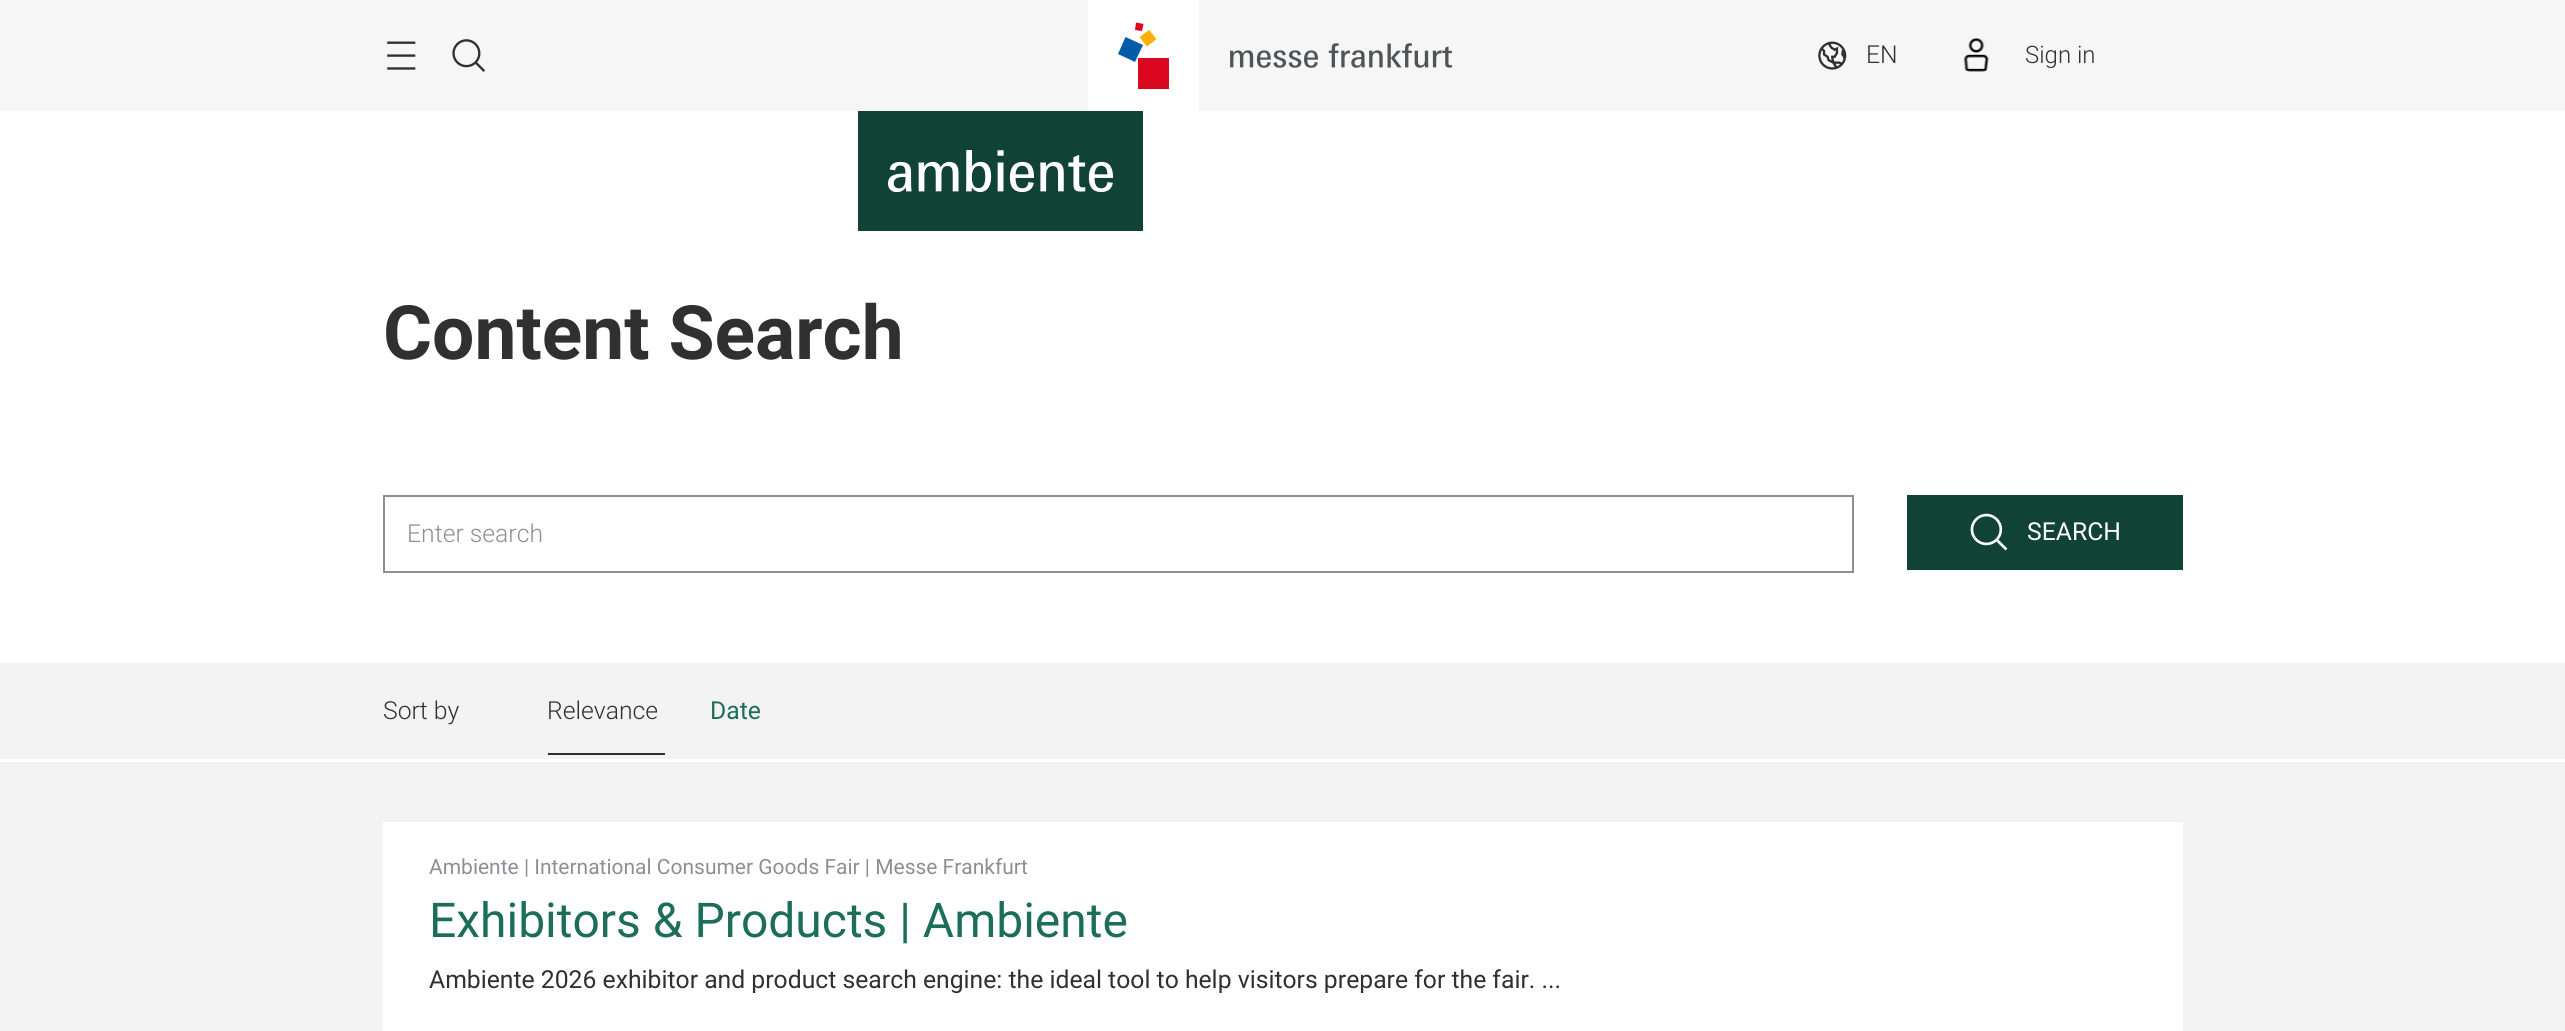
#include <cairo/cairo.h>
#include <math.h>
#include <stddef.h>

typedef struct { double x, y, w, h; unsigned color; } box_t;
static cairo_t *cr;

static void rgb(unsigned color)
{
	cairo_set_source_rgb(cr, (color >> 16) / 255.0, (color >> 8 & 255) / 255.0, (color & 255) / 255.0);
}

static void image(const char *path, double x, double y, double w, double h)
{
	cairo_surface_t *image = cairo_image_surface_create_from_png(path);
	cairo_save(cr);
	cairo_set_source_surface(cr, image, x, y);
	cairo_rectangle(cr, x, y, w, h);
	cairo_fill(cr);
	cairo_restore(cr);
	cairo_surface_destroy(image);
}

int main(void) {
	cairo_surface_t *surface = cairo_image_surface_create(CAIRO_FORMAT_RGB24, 2565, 1031);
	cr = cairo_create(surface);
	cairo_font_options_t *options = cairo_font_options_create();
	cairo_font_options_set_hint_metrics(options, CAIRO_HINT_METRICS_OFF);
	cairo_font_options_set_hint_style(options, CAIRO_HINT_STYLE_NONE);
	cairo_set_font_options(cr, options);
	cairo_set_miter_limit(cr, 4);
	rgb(0xffffff);
	cairo_paint(cr);
	rgb(0xf6f6f6);
	cairo_rectangle(cr, 0, 0, 2565, 111);
	cairo_fill(cr);
	image("img/1.png", 387, 41, 29, 29);
	image("img/2.png", 452, 39, 34, 33);
	rgb(0xffffff);
	cairo_rectangle(cr, 1088, 0, 111, 111);
	cairo_fill(cr);
	rgb(0xdb0720);
	cairo_rectangle(cr, 1138, 58, 31, 31);
	cairo_fill(cr);
	rgb(0x005ca9);
	cairo_new_path(cr);
	cairo_move_to(cr, 1135, 62);
	cairo_line_to(cr, 1118, 54);
	cairo_line_to(cr, 1125.5, 37);
	cairo_line_to(cr, 1143, 45);
	cairo_close_path(cr);
	cairo_fill(cr);
	rgb(0xf9b000);
	cairo_new_path(cr);
	cairo_move_to(cr, 1147, 46.5);
	cairo_line_to(cr, 1139.5, 37);
	cairo_line_to(cr, 1149, 30);
	cairo_line_to(cr, 1156.5, 39);
	cairo_close_path(cr);
	cairo_fill(cr);
	rgb(0xdb0720);
	cairo_new_path(cr);
	cairo_move_to(cr, 1142, 31);
	cairo_line_to(cr, 1135, 30);
	cairo_line_to(cr, 1136, 22.5);
	cairo_line_to(cr, 1143.5, 24);
	cairo_close_path(cr);
	cairo_fill(cr);
	image("img/3.png", 1230, 43, 222, 25);
	image("img/4.png", 1818, 41, 29, 29);
	image("img/5.png", 1963, 37, 26, 35);
	rgb(0x114236);
	cairo_rectangle(cr, 858, 111, 285, 120);
	cairo_fill(cr);
	image("img/6.png", 888, 150, 225, 42);
	cairo_rectangle(cr, 384, 496, 1469, 76);
	rgb(0x8d8f95);
	cairo_stroke(cr);
	rgb(0x114236);
	cairo_rectangle(cr, 1907, 495, 276, 75);
	cairo_fill(cr);
	image("img/7.png", 1970, 513, 38, 38);
	{
		static const box_t items[] = {
			{0, 663, 2565, 96, 0xf3f3f3},
			{548, 753, 117, 2, 0x303030},
			{0, 762, 2565, 269, 0xf3f3f3},
			{383, 822, 1800, 209, 0xffffff},
		};
		for (size_t i = 0; i < sizeof items / sizeof *items; i++) {
			rgb(items[i].color);
			cairo_rectangle(cr, items[i].x, items[i].y, items[i].w, items[i].h);
			cairo_fill(cr);
		}
	}
	cairo_select_font_face(cr, "Roboto Light", CAIRO_FONT_SLANT_NORMAL, CAIRO_FONT_WEIGHT_NORMAL);
	cairo_set_font_size(cr, 24.75);
	rgb(0x303030);
	cairo_move_to(cr, 1866, 63);
	cairo_show_text(cr, "EN");
	cairo_set_font_size(cr, 24);
	cairo_move_to(cr, 2025, 63);
	cairo_show_text(cr, "Sign in");
	cairo_select_font_face(cr, "Roboto", CAIRO_FONT_SLANT_NORMAL, CAIRO_FONT_WEIGHT_BOLD);
	cairo_set_font_size(cr, 75);
	cairo_move_to(cr, 383, 359);
	cairo_show_text(cr, "Content Search");
	cairo_select_font_face(cr, "Roboto Light", CAIRO_FONT_SLANT_NORMAL, CAIRO_FONT_WEIGHT_NORMAL);
	cairo_set_font_size(cr, 24.75);
	rgb(0x8d8f95);
	cairo_move_to(cr, 407, 542);
	cairo_show_text(cr, "Enter search");
	cairo_select_font_face(cr, "Roboto", CAIRO_FONT_SLANT_NORMAL, CAIRO_FONT_WEIGHT_NORMAL);
	rgb(0xffffff);
	cairo_move_to(cr, 2027, 540);
	cairo_show_text(cr, "SEARCH");
	cairo_select_font_face(cr, "Roboto Light", CAIRO_FONT_SLANT_NORMAL, CAIRO_FONT_WEIGHT_NORMAL);
	rgb(0x303030);
	cairo_move_to(cr, 383, 719);
	cairo_show_text(cr, "Sort by");
	cairo_move_to(cr, 547, 719);
	cairo_show_text(cr, "Relevance");
	cairo_select_font_face(cr, "Roboto", CAIRO_FONT_SLANT_NORMAL, CAIRO_FONT_WEIGHT_NORMAL);
	rgb(0x1c6e5a);
	cairo_move_to(cr, 710, 719);
	cairo_show_text(cr, "Date");
	cairo_set_font_size(cr, 21);
	rgb(0x8d8f95);
	cairo_move_to(cr, 429, 874);
	cairo_show_text(cr, "Ambiente | International Consumer Goods Fair | Messe Frankfurt");
	cairo_set_font_size(cr, 48);
	rgb(0x1c6e5a);
	cairo_move_to(cr, 429, 937);
	cairo_show_text(cr, "Exhibitors & Products | Ambiente");
	cairo_set_font_size(cr, 24.75);
	rgb(0x303030);
	cairo_move_to(cr, 429, 988);
	cairo_show_text(cr, "Ambiente 2026 exhibitor and product search engine: the ideal tool to help visitors prepare for the fair. ...");
	cairo_surface_write_to_png(surface, "page.png");
	cairo_font_options_destroy(options);
	cairo_destroy(cr);
	cairo_surface_destroy(surface);
	return 0;
}
